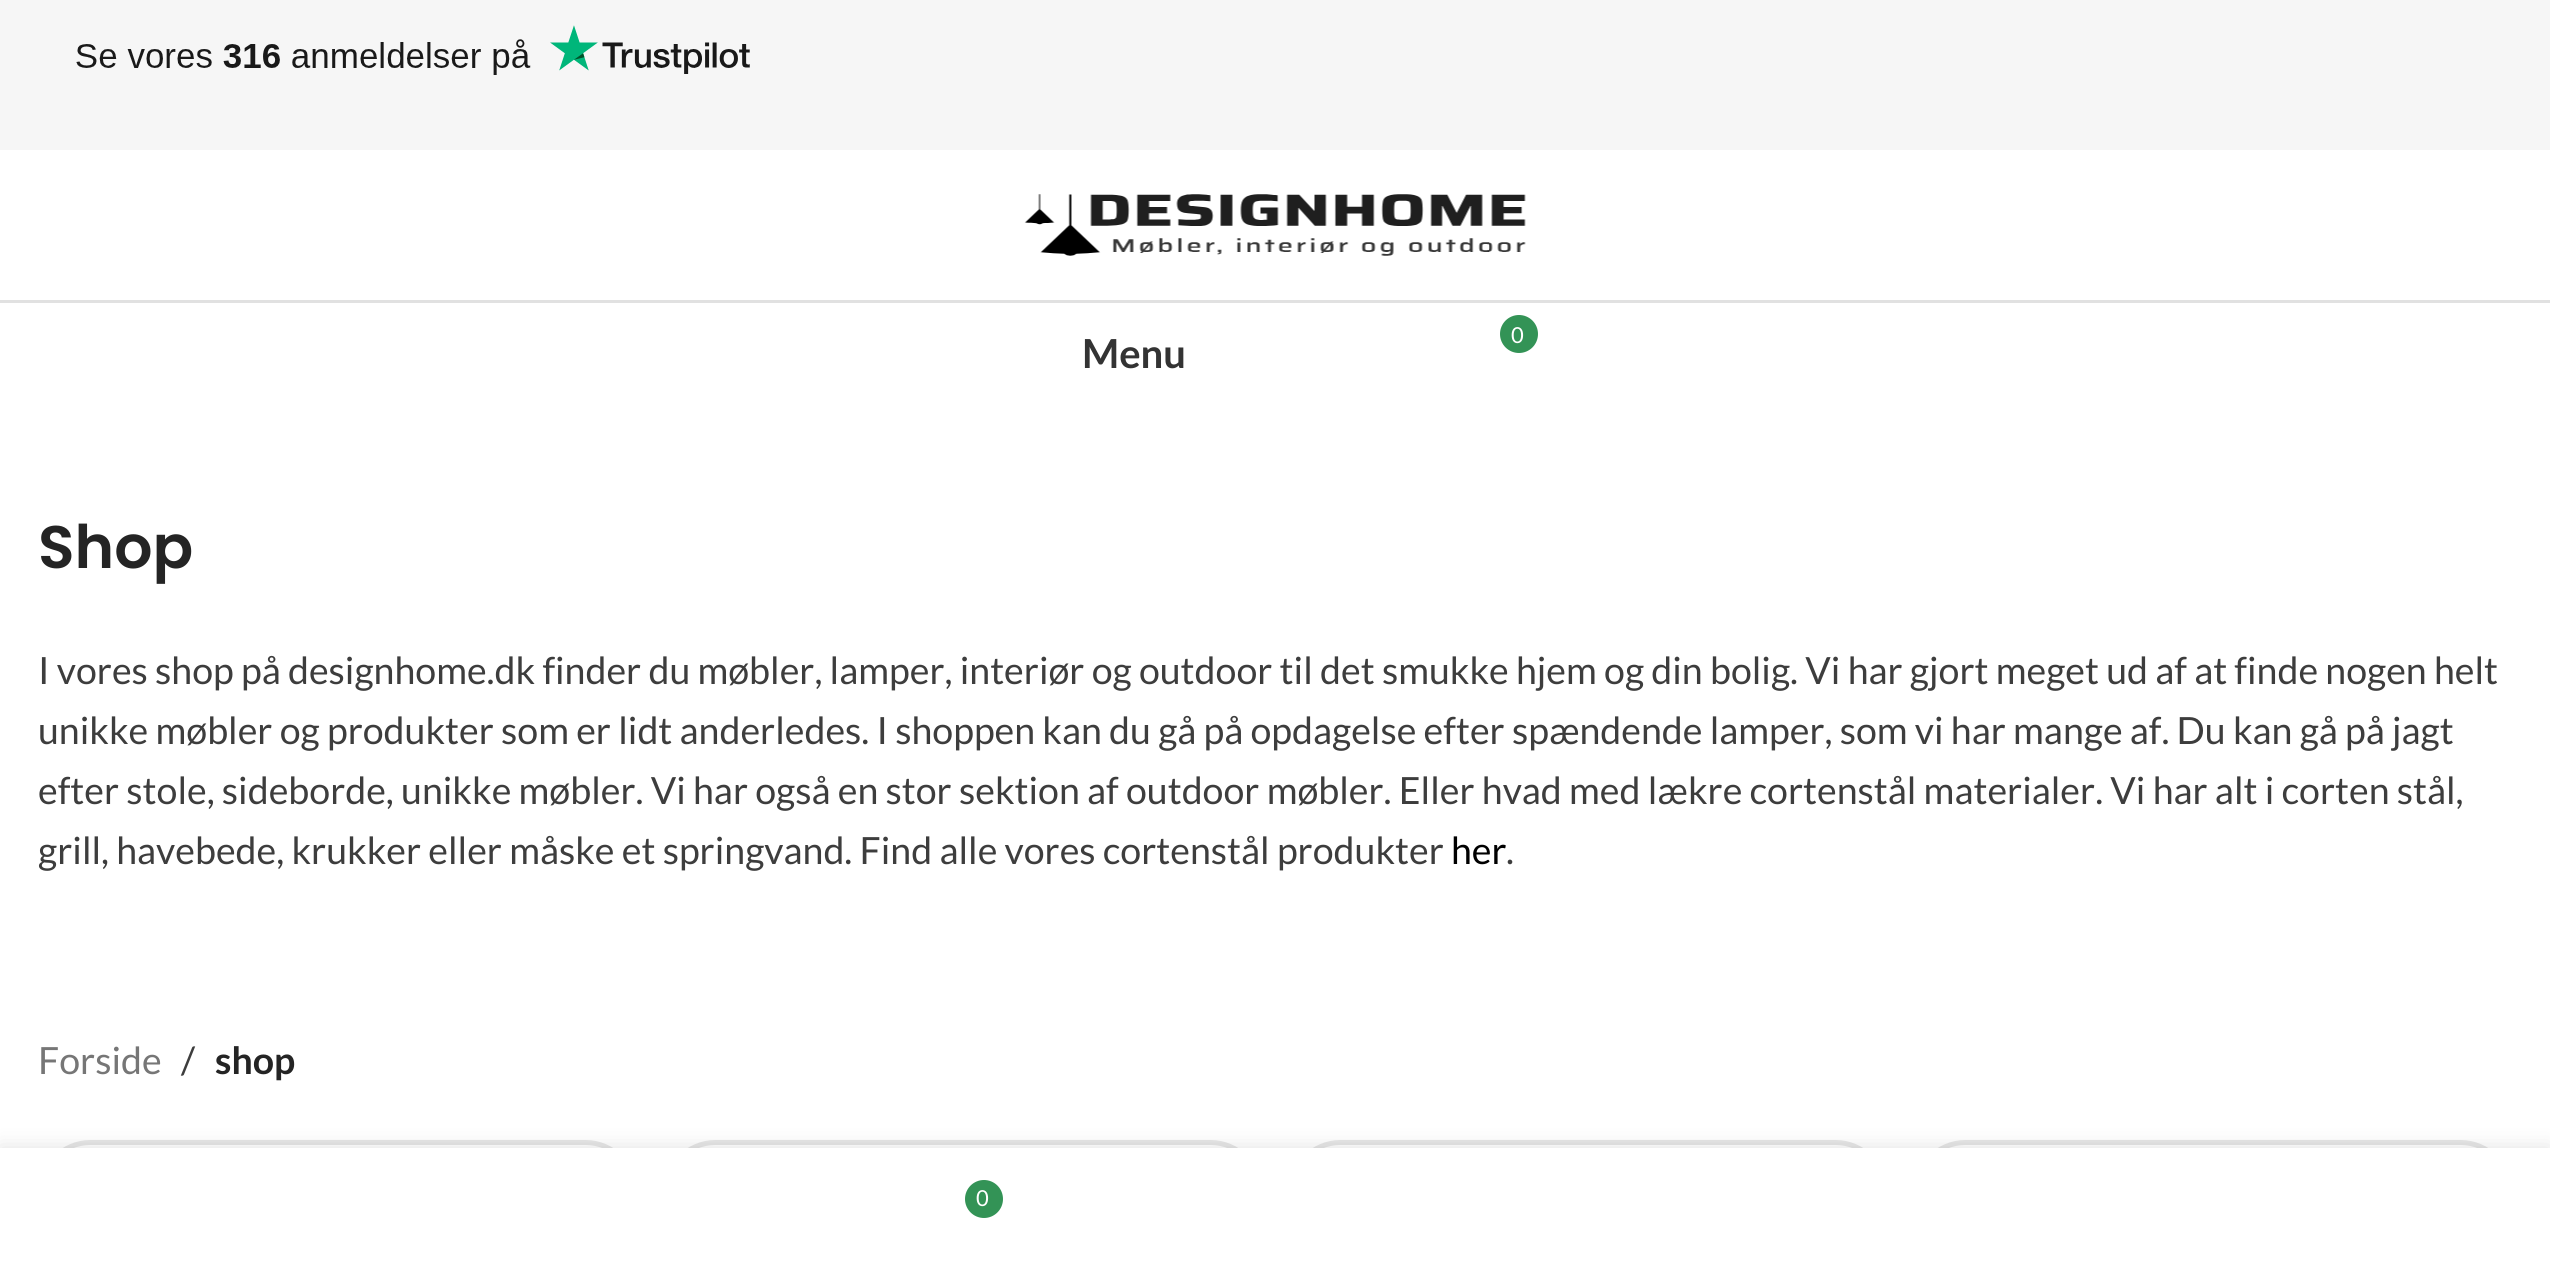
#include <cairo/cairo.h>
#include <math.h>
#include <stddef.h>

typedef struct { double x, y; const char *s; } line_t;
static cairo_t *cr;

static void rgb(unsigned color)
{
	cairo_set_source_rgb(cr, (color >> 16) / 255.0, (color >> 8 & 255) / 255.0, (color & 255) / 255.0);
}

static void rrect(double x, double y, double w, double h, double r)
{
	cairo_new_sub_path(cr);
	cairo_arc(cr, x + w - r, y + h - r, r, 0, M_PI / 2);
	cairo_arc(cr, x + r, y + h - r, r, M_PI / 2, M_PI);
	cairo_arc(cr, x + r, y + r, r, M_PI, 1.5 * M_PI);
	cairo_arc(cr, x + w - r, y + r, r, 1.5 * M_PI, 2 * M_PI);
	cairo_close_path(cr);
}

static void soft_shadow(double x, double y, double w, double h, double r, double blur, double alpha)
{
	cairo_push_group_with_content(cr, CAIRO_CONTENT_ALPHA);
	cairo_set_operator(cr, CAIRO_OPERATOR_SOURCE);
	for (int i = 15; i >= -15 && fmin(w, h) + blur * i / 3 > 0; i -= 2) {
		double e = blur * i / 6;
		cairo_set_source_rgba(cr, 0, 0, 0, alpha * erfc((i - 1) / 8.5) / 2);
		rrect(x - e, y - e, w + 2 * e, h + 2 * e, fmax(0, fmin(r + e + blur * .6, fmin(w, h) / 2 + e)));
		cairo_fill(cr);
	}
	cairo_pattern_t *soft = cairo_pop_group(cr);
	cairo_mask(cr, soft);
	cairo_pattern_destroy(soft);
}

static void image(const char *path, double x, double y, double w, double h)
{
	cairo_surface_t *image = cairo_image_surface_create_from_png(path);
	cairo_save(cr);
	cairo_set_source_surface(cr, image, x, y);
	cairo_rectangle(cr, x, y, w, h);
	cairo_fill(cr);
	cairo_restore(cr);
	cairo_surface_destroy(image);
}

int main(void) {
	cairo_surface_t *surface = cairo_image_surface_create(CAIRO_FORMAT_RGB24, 2550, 1285);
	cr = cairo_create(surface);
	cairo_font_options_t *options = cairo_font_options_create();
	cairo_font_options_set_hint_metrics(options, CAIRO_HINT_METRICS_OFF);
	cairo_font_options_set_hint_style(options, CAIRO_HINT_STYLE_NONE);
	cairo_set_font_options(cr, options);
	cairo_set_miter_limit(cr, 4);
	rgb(0xffffff);
	cairo_paint(cr);
	rgb(0xf6f6f6);
	cairo_rectangle(cr, 0, 0, 2550, 150);
	cairo_fill(cr);
	image("img/1.png", 76, 25, 674, 50);
	rgb(0xe1e1e1);
	cairo_rectangle(cr, 0, 300, 2550, 3);
	cairo_fill(cr);
	image("img/2.png", 1024, 194, 502, 62);
	rgb(0x339356);
	cairo_arc(cr, 1519, 334, 19, 0, 2 * M_PI);
	cairo_fill(cr);
	rrect(40.5, 1142.5, 595, 100, 50);
	rgb(0xe6e6e6);
	cairo_set_line_width(cr, 5);
	cairo_stroke(cr);
	rrect(665.5, 1142.5, 595, 100, 50);
	cairo_stroke(cr);
	rrect(1290.5, 1142.5, 595, 100, 50);
	cairo_stroke(cr);
	rrect(1915.5, 1142.5, 595, 100, 50);
	cairo_stroke(cr);
	rgb(0x000000);
	soft_shadow(0, 1148, 2550, 137, 0, 11, 0.12);
	rgb(0xffffff);
	cairo_rectangle(cr, 0, 1148, 2550, 137);
	cairo_fill(cr);
	rgb(0x339356);
	cairo_arc(cr, 984, 1199, 19, 0, 2 * M_PI);
	cairo_fill(cr);
	cairo_select_font_face(cr, "Lato", CAIRO_FONT_SLANT_NORMAL, CAIRO_FONT_WEIGHT_NORMAL);
	cairo_set_font_size(cr, 22);
	rgb(0xffffff);
	cairo_move_to(cr, 1511, 343);
	cairo_show_text(cr, "0");
	cairo_select_font_face(cr, "Lato", CAIRO_FONT_SLANT_NORMAL, CAIRO_FONT_WEIGHT_BOLD);
	cairo_set_font_size(cr, 40);
	rgb(0x333333);
	cairo_move_to(cr, 1082, 368);
	cairo_show_text(cr, "Menu");
	cairo_select_font_face(cr, "Poppins SemiBold", CAIRO_FONT_SLANT_NORMAL, CAIRO_FONT_WEIGHT_NORMAL);
	cairo_set_font_size(cr, 60);
	rgb(0x242424);
	cairo_move_to(cr, 38, 568);
	cairo_show_text(cr, "Shop");
	cairo_select_font_face(cr, "Lato", CAIRO_FONT_SLANT_NORMAL, CAIRO_FONT_WEIGHT_NORMAL);
	cairo_set_font_size(cr, 37.5);
	rgb(0x3d3d3d);
	{
		static const line_t items[] = {
			{38, 684, "I vores shop på designhome.dk finder du møbler, lamper, interiør og outdoor til det smukke hjem og din bolig. Vi har gjort meget ud af at finde nogen helt"},
			{38, 744, "unikke møbler og produkter som er lidt anderledes. I shoppen kan du gå på opdagelse efter spændende lamper, som vi har mange af. Du kan gå på jagt"},
			{38, 804, "efter stole, sideborde, unikke møbler. Vi har også en stor sektion af outdoor møbler. Eller hvad med lækre cortenstål materialer. Vi har alt i corten stål,"},
			{38, 864, "grill, havebede, krukker eller måske et springvand. Find alle vores cortenstål produkter"},
		};
		for (size_t i = 0; i < sizeof items / sizeof *items; i++) {
			cairo_move_to(cr, items[i].x, items[i].y);
			cairo_show_text(cr, items[i].s);
		}
	}
	rgb(0x000000);
	cairo_move_to(cr, 1451, 864);
	cairo_show_text(cr, "her");
	rgb(0x3d3d3d);
	cairo_move_to(cr, 1506, 864);
	cairo_show_text(cr, ".");
	rgb(0x767676);
	cairo_move_to(cr, 38, 1074);
	cairo_show_text(cr, "Forside");
	rgb(0x3d3d3d);
	cairo_move_to(cr, 181, 1074);
	cairo_show_text(cr, "/");
	cairo_select_font_face(cr, "Lato", CAIRO_FONT_SLANT_NORMAL, CAIRO_FONT_WEIGHT_BOLD);
	rgb(0x242424);
	cairo_move_to(cr, 215, 1074);
	cairo_show_text(cr, "shop");
	cairo_select_font_face(cr, "Lato", CAIRO_FONT_SLANT_NORMAL, CAIRO_FONT_WEIGHT_NORMAL);
	cairo_set_font_size(cr, 22);
	rgb(0xffffff);
	cairo_move_to(cr, 976, 1206);
	cairo_show_text(cr, "0");
	cairo_surface_write_to_png(surface, "page.png");
	cairo_font_options_destroy(options);
	cairo_destroy(cr);
	cairo_surface_destroy(surface);
	return 0;
}
